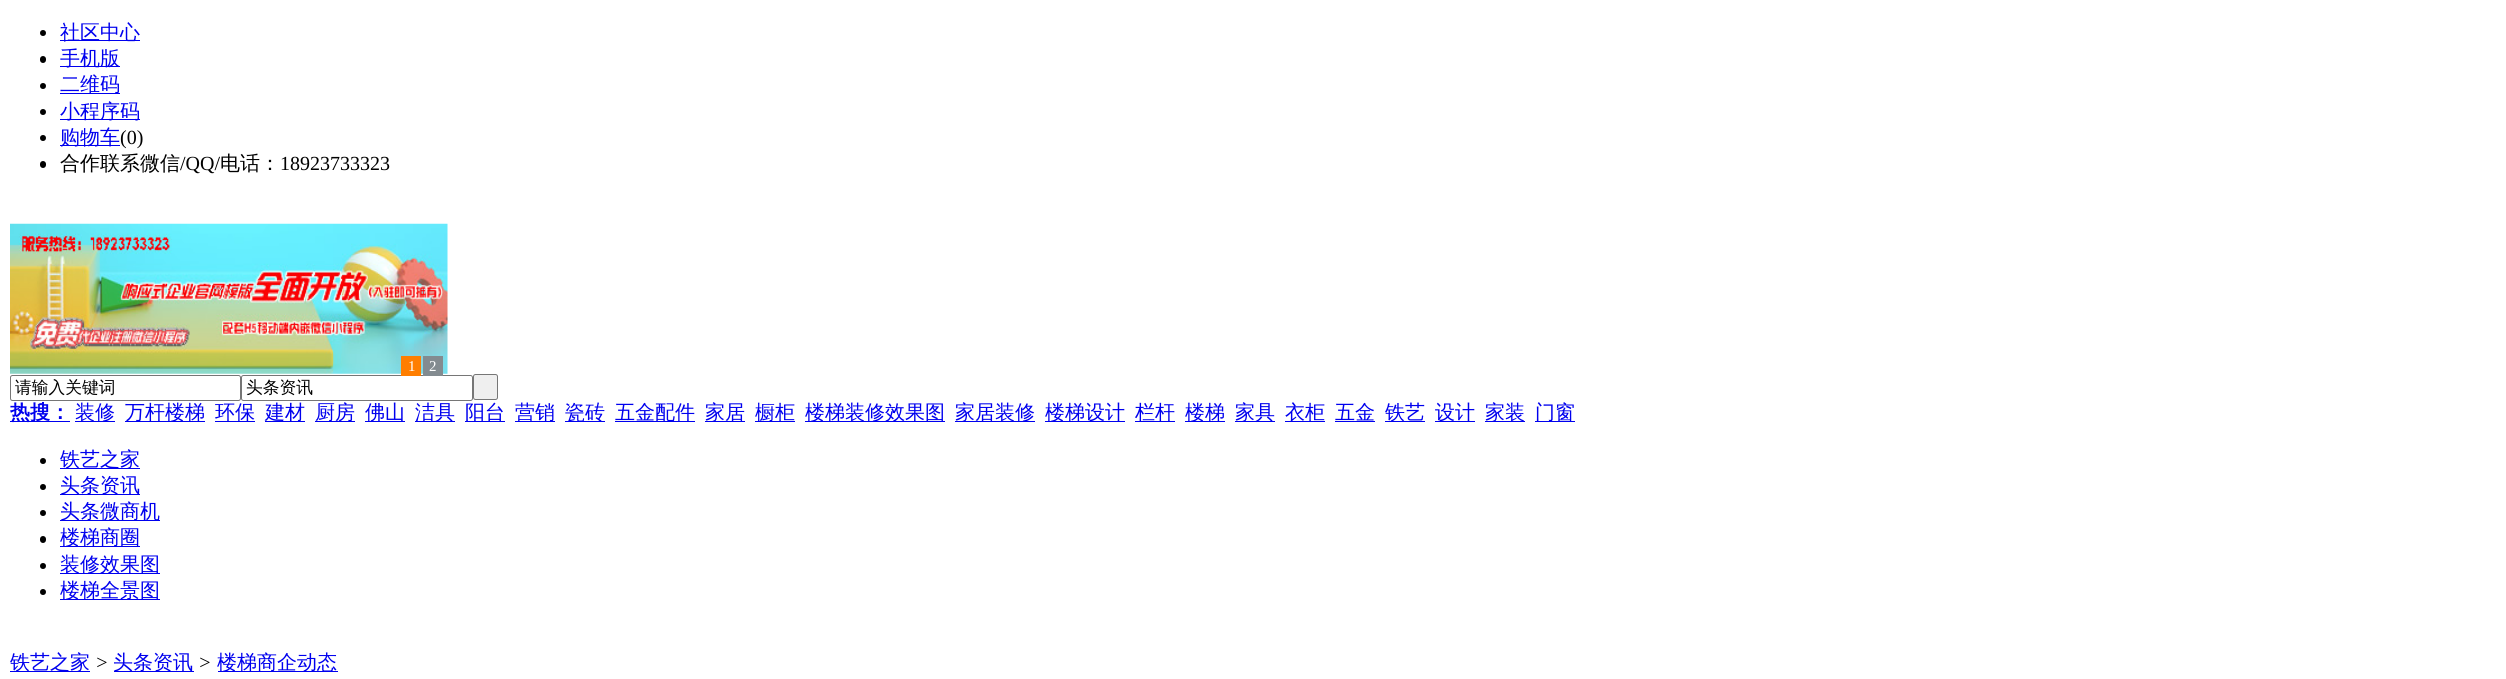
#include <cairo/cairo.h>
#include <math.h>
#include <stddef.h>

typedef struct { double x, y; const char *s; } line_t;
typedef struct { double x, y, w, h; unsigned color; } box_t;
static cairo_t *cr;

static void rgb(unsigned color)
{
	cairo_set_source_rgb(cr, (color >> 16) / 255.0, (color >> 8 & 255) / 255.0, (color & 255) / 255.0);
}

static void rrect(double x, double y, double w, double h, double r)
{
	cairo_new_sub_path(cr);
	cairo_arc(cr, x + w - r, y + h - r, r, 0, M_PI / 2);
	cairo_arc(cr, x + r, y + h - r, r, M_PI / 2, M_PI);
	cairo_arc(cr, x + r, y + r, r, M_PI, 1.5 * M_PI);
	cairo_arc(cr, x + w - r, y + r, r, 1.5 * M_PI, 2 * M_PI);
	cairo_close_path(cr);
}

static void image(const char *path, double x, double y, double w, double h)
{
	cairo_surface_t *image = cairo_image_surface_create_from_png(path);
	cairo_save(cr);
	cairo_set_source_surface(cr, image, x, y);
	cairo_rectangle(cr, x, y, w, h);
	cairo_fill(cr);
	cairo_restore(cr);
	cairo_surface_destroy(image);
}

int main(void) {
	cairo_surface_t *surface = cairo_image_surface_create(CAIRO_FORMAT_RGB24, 2506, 679);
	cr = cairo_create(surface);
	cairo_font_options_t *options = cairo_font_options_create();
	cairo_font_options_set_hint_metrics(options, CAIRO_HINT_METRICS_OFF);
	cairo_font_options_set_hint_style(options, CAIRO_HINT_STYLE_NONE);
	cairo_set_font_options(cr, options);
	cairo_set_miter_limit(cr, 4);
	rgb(0xffffff);
	cairo_paint(cr);
	rgb(0x000000);
	cairo_arc(cr, 43, 33, 3, 0, 2 * M_PI);
	cairo_fill(cr);
	rgb(0x0000ee);
	cairo_rectangle(cr, 60, 40, 80, 1);
	cairo_fill(cr);
	rgb(0x000000);
	rrect(40, 56, 6, 7, 3);
	cairo_fill(cr);
	rgb(0x0000ee);
	cairo_rectangle(cr, 60, 66, 60, 1);
	cairo_fill(cr);
	rgb(0x000000);
	cairo_arc(cr, 43, 86, 3, 0, 2 * M_PI);
	cairo_fill(cr);
	rgb(0x0000ee);
	cairo_rectangle(cr, 60, 93, 60, 1);
	cairo_fill(cr);
	rgb(0x000000);
	cairo_arc(cr, 43, 112, 3, 0, 2 * M_PI);
	cairo_fill(cr);
	rgb(0x0000ee);
	cairo_rectangle(cr, 60, 119, 80, 1);
	cairo_fill(cr);
	rgb(0x000000);
	cairo_arc(cr, 43, 138, 3, 0, 2 * M_PI);
	cairo_fill(cr);
	rgb(0x0000ee);
	cairo_rectangle(cr, 60, 145, 60, 1);
	cairo_fill(cr);
	rgb(0x000000);
	rrect(40, 161, 6, 7, 3);
	cairo_fill(cr);
	image("img/1.png", 10, 223, 438, 151);
	rrect(241.5, 375.5, 231, 25, 2);
	rgb(0x767676);
	cairo_set_line_width(cr, 1);
	cairo_stroke(cr);
	rgb(0xff7e00);
	cairo_rectangle(cr, 401, 356, 20, 20);
	cairo_fill(cr);
	rgb(0x838b90);
	cairo_rectangle(cr, 423, 356, 20, 20);
	cairo_fill(cr);
	rrect(10.5, 375.5, 230, 25, 2);
	rgb(0x767676);
	cairo_stroke(cr);
	rgb(0xefefef);
	rrect(473.5, 374.5, 24, 25, 2);
	cairo_fill_preserve(cr);
	rgb(0x767676);
	cairo_stroke(cr);
	{
		static const box_t items[] = {
			{10, 421, 60, 1, 0x0000ee},
			{75, 421, 40, 1, 0x0000ee},
			{125, 421, 80, 1, 0x0000ee},
			{215, 421, 40, 1, 0x0000ee},
			{265, 421, 40, 1, 0x0000ee},
			{315, 421, 40, 1, 0x0000ee},
			{365, 421, 40, 1, 0x0000ee},
			{415, 421, 40, 1, 0x0000ee},
			{465, 421, 40, 1, 0x0000ee},
			{515, 421, 40, 1, 0x0000ee},
			{565, 421, 40, 1, 0x0000ee},
			{615, 421, 80, 1, 0x0000ee},
			{705, 421, 40, 1, 0x0000ee},
			{755, 421, 40, 1, 0x0000ee},
			{805, 421, 140, 1, 0x0000ee},
			{955, 421, 80, 1, 0x0000ee},
			{1045, 421, 80, 1, 0x0000ee},
			{1135, 421, 40, 1, 0x0000ee},
			{1185, 421, 40, 1, 0x0000ee},
			{1235, 421, 40, 1, 0x0000ee},
			{1285, 421, 40, 1, 0x0000ee},
			{1335, 421, 40, 1, 0x0000ee},
			{1385, 421, 40, 1, 0x0000ee},
			{1435, 421, 40, 1, 0x0000ee},
			{1485, 421, 40, 1, 0x0000ee},
			{1535, 421, 40, 1, 0x0000ee},
		};
		for (size_t i = 0; i < sizeof items / sizeof *items; i++) {
			rgb(items[i].color);
			cairo_rectangle(cr, items[i].x, items[i].y, items[i].w, items[i].h);
			cairo_fill(cr);
		}
	}
	rgb(0x000000);
	cairo_arc(cr, 43, 461, 3, 0, 2 * M_PI);
	cairo_fill(cr);
	rgb(0x0000ee);
	cairo_rectangle(cr, 60, 468, 80, 1);
	cairo_fill(cr);
	rgb(0x000000);
	cairo_arc(cr, 43, 487, 3, 0, 2 * M_PI);
	cairo_fill(cr);
	rgb(0x0000ee);
	cairo_rectangle(cr, 60, 494, 80, 1);
	cairo_fill(cr);
	rgb(0x000000);
	cairo_arc(cr, 43, 513, 3, 0, 2 * M_PI);
	cairo_fill(cr);
	rgb(0x0000ee);
	cairo_rectangle(cr, 60, 520, 100, 1);
	cairo_fill(cr);
	rgb(0x000000);
	rrect(40, 536, 6, 7, 3);
	cairo_fill(cr);
	rgb(0x0000ee);
	cairo_rectangle(cr, 60, 546, 80, 1);
	cairo_fill(cr);
	rgb(0x000000);
	cairo_arc(cr, 43, 566, 3, 0, 2 * M_PI);
	cairo_fill(cr);
	rgb(0x0000ee);
	cairo_rectangle(cr, 60, 573, 100, 1);
	cairo_fill(cr);
	rgb(0x000000);
	cairo_arc(cr, 43, 592, 3, 0, 2 * M_PI);
	cairo_fill(cr);
	{
		static const box_t items[] = {
			{60, 599, 100, 1, 0x0000ee},
			{10, 671, 80, 1, 0x0000ee},
			{114, 671, 80, 1, 0x0000ee},
			{218, 671, 120, 1, 0x0000ee},
		};
		for (size_t i = 0; i < sizeof items / sizeof *items; i++) {
			rgb(items[i].color);
			cairo_rectangle(cr, items[i].x, items[i].y, items[i].w, items[i].h);
			cairo_fill(cr);
		}
	}
	cairo_select_font_face(cr, "WenQuanYi Zen Hei Medium", CAIRO_FONT_SLANT_NORMAL, CAIRO_FONT_WEIGHT_NORMAL);
	cairo_set_font_size(cr, 20);
	{
		static const line_t items[] = {
			{60, 39, "社区中心"},
			{60, 65, "手机版"},
			{60, 91, "二维码"},
			{60, 118, "小程序码"},
			{60, 144, "购物车"},
		};
		for (size_t i = 0; i < sizeof items / sizeof *items; i++) {
			cairo_move_to(cr, items[i].x, items[i].y);
			cairo_show_text(cr, items[i].s);
		}
	}
	cairo_select_font_face(cr, "Liberation Serif", CAIRO_FONT_SLANT_NORMAL, CAIRO_FONT_WEIGHT_NORMAL);
	rgb(0x000000);
	cairo_move_to(cr, 120, 144);
	cairo_show_text(cr, "(0)");
	cairo_select_font_face(cr, "WenQuanYi Zen Hei Medium", CAIRO_FONT_SLANT_NORMAL, CAIRO_FONT_WEIGHT_NORMAL);
	cairo_move_to(cr, 60, 170);
	cairo_show_text(cr, "合作联系微信");
	cairo_select_font_face(cr, "Liberation Serif", CAIRO_FONT_SLANT_NORMAL, CAIRO_FONT_WEIGHT_NORMAL);
	cairo_move_to(cr, 180, 170);
	cairo_show_text(cr, "/QQ/");
	cairo_select_font_face(cr, "WenQuanYi Zen Hei Medium", CAIRO_FONT_SLANT_NORMAL, CAIRO_FONT_WEIGHT_NORMAL);
	cairo_move_to(cr, 220, 170);
	cairo_show_text(cr, "电话：");
	cairo_select_font_face(cr, "Liberation Serif", CAIRO_FONT_SLANT_NORMAL, CAIRO_FONT_WEIGHT_NORMAL);
	cairo_move_to(cr, 280, 170);
	cairo_show_text(cr, "18923733323");
	cairo_set_font_size(cr, 15);
	rgb(0xffffff);
	cairo_move_to(cr, 408, 371);
	cairo_show_text(cr, "1");
	cairo_move_to(cr, 429, 371);
	cairo_show_text(cr, "2");
	cairo_select_font_face(cr, "WenQuanYi Zen Hei Medium", CAIRO_FONT_SLANT_NORMAL, CAIRO_FONT_WEIGHT_NORMAL);
	cairo_set_font_size(cr, 16.75);
	rgb(0x000000);
	cairo_move_to(cr, 15, 393);
	cairo_show_text(cr, "请输入关键词");
	cairo_move_to(cr, 246, 393);
	cairo_show_text(cr, "头条资讯");
	cairo_select_font_face(cr, "WenQuanYi Zen Hei", CAIRO_FONT_SLANT_NORMAL, CAIRO_FONT_WEIGHT_BOLD);
	cairo_set_font_size(cr, 20);
	rgb(0x0000ee);
	cairo_move_to(cr, 10, 419);
	cairo_show_text(cr, "热搜：");
	cairo_select_font_face(cr, "WenQuanYi Zen Hei Medium", CAIRO_FONT_SLANT_NORMAL, CAIRO_FONT_WEIGHT_NORMAL);
	{
		static const line_t items[] = {
			{75, 419, "装修"},
			{125, 419, "万杆楼梯"},
			{215, 419, "环保"},
			{265, 419, "建材"},
			{315, 419, "厨房"},
			{365, 419, "佛山"},
			{415, 419, "洁具"},
			{465, 419, "阳台"},
			{515, 419, "营销"},
			{565, 419, "瓷砖"},
			{615, 419, "五金配件"},
			{705, 419, "家居"},
			{755, 419, "橱柜"},
			{805, 419, "楼梯装修效果图"},
			{955, 419, "家居装修"},
			{1045, 419, "楼梯设计"},
			{1135, 419, "栏杆"},
			{1185, 419, "楼梯"},
			{1235, 419, "家具"},
			{1285, 419, "衣柜"},
			{1335, 419, "五金"},
			{1385, 419, "铁艺"},
			{1435, 419, "设计"},
			{1485, 419, "家装"},
			{1535, 419, "门窗"},
			{60, 466, "铁艺之家"},
			{60, 492, "头条资讯"},
			{60, 518, "头条微商机"},
			{60, 544, "楼梯商圈"},
			{60, 571, "装修效果图"},
			{60, 597, "楼梯全景图"},
			{10, 669, "铁艺之家"},
		};
		for (size_t i = 0; i < sizeof items / sizeof *items; i++) {
			cairo_move_to(cr, items[i].x, items[i].y);
			cairo_show_text(cr, items[i].s);
		}
	}
	cairo_select_font_face(cr, "Liberation Serif", CAIRO_FONT_SLANT_ITALIC, CAIRO_FONT_WEIGHT_NORMAL);
	rgb(0x000000);
	cairo_move_to(cr, 95, 669);
	cairo_show_text(cr, ">");
	cairo_select_font_face(cr, "WenQuanYi Zen Hei Medium", CAIRO_FONT_SLANT_NORMAL, CAIRO_FONT_WEIGHT_NORMAL);
	rgb(0x0000ee);
	cairo_move_to(cr, 113, 669);
	cairo_show_text(cr, "头条资讯");
	cairo_select_font_face(cr, "Liberation Serif", CAIRO_FONT_SLANT_ITALIC, CAIRO_FONT_WEIGHT_NORMAL);
	rgb(0x000000);
	cairo_move_to(cr, 198, 669);
	cairo_show_text(cr, ">");
	cairo_select_font_face(cr, "WenQuanYi Zen Hei Medium", CAIRO_FONT_SLANT_NORMAL, CAIRO_FONT_WEIGHT_NORMAL);
	rgb(0x0000ee);
	cairo_move_to(cr, 217, 669);
	cairo_show_text(cr, "楼梯商企动态");
	cairo_surface_write_to_png(surface, "page.png");
	cairo_font_options_destroy(options);
	cairo_destroy(cr);
	cairo_surface_destroy(surface);
	return 0;
}
